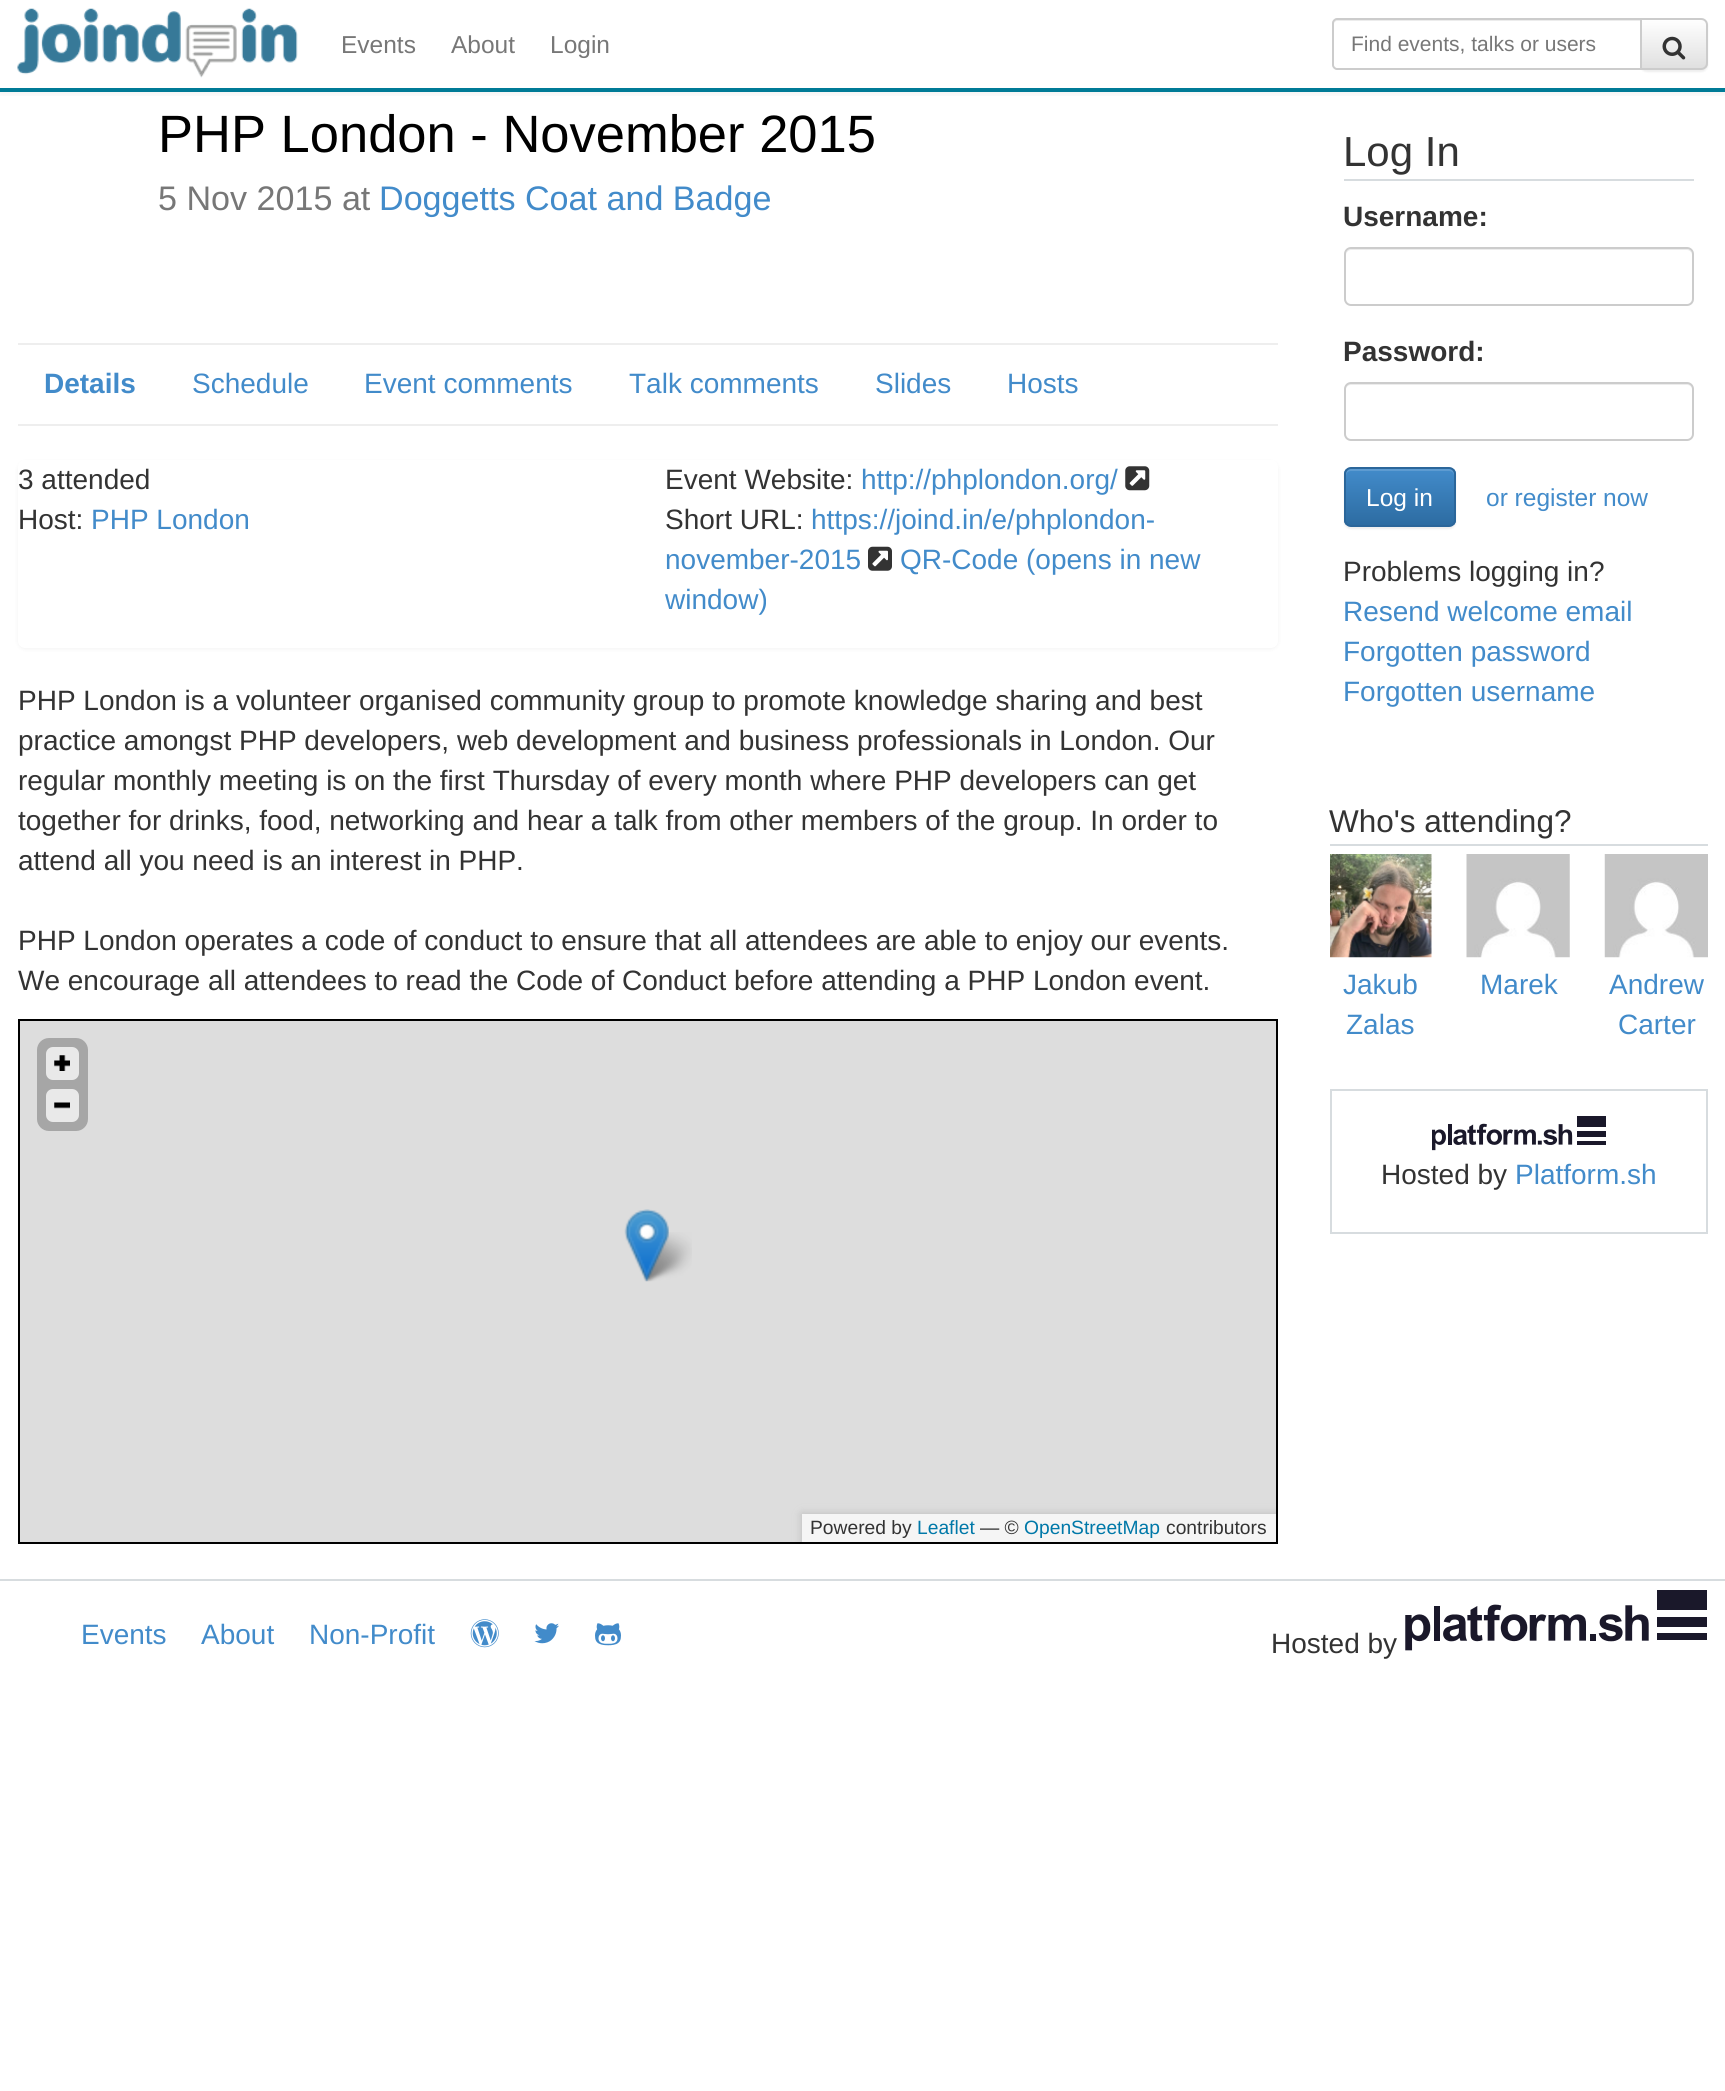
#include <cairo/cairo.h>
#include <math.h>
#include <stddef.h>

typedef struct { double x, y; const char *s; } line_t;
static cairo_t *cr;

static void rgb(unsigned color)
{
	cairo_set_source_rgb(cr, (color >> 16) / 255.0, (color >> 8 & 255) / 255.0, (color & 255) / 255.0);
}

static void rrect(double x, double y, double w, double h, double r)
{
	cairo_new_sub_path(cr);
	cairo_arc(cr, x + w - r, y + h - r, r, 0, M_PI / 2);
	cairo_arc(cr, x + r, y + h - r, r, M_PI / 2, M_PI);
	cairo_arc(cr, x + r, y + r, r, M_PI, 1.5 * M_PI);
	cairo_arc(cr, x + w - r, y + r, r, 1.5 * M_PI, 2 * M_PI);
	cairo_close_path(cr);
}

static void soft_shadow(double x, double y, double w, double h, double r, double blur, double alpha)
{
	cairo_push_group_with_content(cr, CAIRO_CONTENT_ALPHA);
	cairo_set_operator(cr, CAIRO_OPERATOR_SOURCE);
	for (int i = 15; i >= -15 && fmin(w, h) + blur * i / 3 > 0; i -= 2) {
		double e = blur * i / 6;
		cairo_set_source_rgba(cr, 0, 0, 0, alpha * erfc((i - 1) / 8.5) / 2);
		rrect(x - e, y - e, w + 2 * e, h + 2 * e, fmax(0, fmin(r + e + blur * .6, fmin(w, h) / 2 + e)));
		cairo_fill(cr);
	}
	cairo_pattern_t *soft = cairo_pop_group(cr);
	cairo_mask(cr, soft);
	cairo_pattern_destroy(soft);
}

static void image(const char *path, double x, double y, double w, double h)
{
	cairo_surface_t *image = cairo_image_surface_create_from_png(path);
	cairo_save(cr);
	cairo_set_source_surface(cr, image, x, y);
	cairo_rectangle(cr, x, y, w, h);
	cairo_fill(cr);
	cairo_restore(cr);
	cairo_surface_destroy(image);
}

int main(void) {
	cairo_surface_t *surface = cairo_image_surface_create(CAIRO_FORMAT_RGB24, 1725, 2091);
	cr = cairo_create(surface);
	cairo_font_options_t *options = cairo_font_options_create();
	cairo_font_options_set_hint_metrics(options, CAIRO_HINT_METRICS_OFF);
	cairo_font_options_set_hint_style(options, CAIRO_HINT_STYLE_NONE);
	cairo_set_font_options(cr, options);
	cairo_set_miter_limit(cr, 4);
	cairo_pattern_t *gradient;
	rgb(0xffffff);
	cairo_paint(cr);
	cairo_save(cr);
	cairo_rectangle(cr, 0, 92, 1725, 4);
	cairo_clip(cr);
	rgb(0x000000);
	soft_shadow(0, 2, 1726, 91, 0, 4.5, 0.07);
	cairo_restore(cr);
	rgb(0x007b97);
	cairo_rectangle(cr, 0, 88, 1725, 4);
	cairo_fill(cr);
	image("img/1.png", 17, 8, 281, 70);
	rgb(0x000000);
	soft_shadow(1640, 19, 68, 53, 7, 1, 0.07);
	cairo_save(cr);
	cairo_new_path(cr);
	cairo_move_to(cr, 1640, 18);
	cairo_line_to(cr, 1701, 18);
	cairo_curve_to(cr, 1705, 18, 1708, 21, 1708, 25);
	cairo_line_to(cr, 1708, 63);
	cairo_curve_to(cr, 1708, 67, 1705, 70, 1701, 70);
	cairo_line_to(cr, 1640, 70);
	cairo_close_path(cr);
	cairo_clip(cr);
	gradient = cairo_pattern_create_linear(1674, 19, 1674, 68);
	cairo_pattern_add_color_stop_rgba(gradient, 0, 1, 1, 1, 1);
	cairo_pattern_add_color_stop_rgba(gradient, 1, 0.878, 0.878, 0.878, 1);
	cairo_set_source(cr, gradient);
	cairo_pattern_destroy(gradient);
	cairo_rectangle(cr, 1642, 19, 66, 49);
	cairo_fill(cr);
	cairo_restore(cr);
	cairo_new_path(cr);
	cairo_move_to(cr, 1641, 19);
	cairo_line_to(cr, 1701, 19);
	cairo_curve_to(cr, 1704.5, 19, 1707, 21.5, 1707, 25);
	cairo_line_to(cr, 1707, 63);
	cairo_curve_to(cr, 1707, 66.5, 1704.5, 69, 1701, 69);
	cairo_line_to(cr, 1641, 69);
	cairo_close_path(cr);
	rgb(0xcccccc);
	cairo_stroke(cr);
	rgb(0xffffff);
	cairo_new_path(cr);
	cairo_move_to(cr, 1337, 18);
	cairo_line_to(cr, 1642, 18);
	cairo_line_to(cr, 1642, 70);
	cairo_line_to(cr, 1337, 70);
	cairo_curve_to(cr, 1334, 70, 1332, 68, 1332, 65);
	cairo_line_to(cr, 1332, 23);
	cairo_curve_to(cr, 1332, 20, 1334, 18, 1337, 18);
	cairo_close_path(cr);
	cairo_fill(cr);
	rgb(0xececec);
	cairo_new_path(cr);
	cairo_move_to(cr, 1337, 21);
	cairo_line_to(cr, 1640, 21);
	cairo_line_to(cr, 1640, 19);
	cairo_line_to(cr, 1338, 19);
	cairo_curve_to(cr, 1336, 19, 1334, 21, 1334, 23);
	cairo_line_to(cr, 1334, 24);
	cairo_curve_to(cr, 1334, 23, 1335, 21, 1337, 21);
	cairo_close_path(cr);
	cairo_fill(cr);
	cairo_new_path(cr);
	cairo_move_to(cr, 1337, 19);
	cairo_line_to(cr, 1641, 19);
	cairo_line_to(cr, 1641, 69);
	cairo_line_to(cr, 1337, 69);
	cairo_curve_to(cr, 1335, 69, 1333, 67, 1333, 65);
	cairo_line_to(cr, 1333, 23);
	cairo_curve_to(cr, 1333, 21, 1335, 19, 1337, 19);
	cairo_close_path(cr);
	rgb(0xcccccc);
	cairo_stroke(cr);
	image("img/2.png", 1662, 36, 24, 24);
	rgb(0xeeeeee);
	cairo_rectangle(cr, 18, 424, 1260, 2);
	cairo_fill(cr);
	cairo_rectangle(cr, 18, 343, 1260, 2);
	cairo_fill(cr);
	rgb(0x000000);
	soft_shadow(18, 462, 1260, 187, 7, 2, 0.05);
	rgb(0xffffff);
	rrect(18, 460, 1260, 188, 7);
	cairo_fill(cr);
	image("img/3.png", 1125, 466, 25, 25);
	image("img/4.png", 868, 546, 24, 25);
	rgb(0xdddddd);
	cairo_rectangle(cr, 19, 1020, 1258, 523);
	cairo_fill_preserve(cr);
	rgb(0x000000);
	cairo_stroke(cr);
	image("img/6.png", 640, 1232, 52, 50);
	image("img/5.png", 624, 1209, 45, 73);
	rgb(0xa6a6a6);
	rrect(37, 1038, 51, 93, 12);
	cairo_fill(cr);
	rgb(0xe9e9e9);
	rrect(46, 1047, 33, 33, 7);
	cairo_fill(cr);
	image("img/7.png", 54, 1055, 16, 16);
	rrect(46, 1089, 33, 33, 7);
	cairo_fill(cr);
	image("img/8.png", 54, 1102, 16, 7);
	cairo_save(cr);
	cairo_rectangle(cr, 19, 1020, 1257, 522);
	cairo_clip(cr);
	cairo_set_fill_rule(cr, CAIRO_FILL_RULE_EVEN_ODD);
	cairo_new_path(cr);
	cairo_move_to(cr, 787, 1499);
	cairo_line_to(cr, 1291, 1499);
	cairo_line_to(cr, 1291, 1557);
	cairo_line_to(cr, 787, 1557);
	cairo_close_path(cr);
	cairo_move_to(cr, 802, 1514);
	cairo_line_to(cr, 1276, 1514);
	cairo_line_to(cr, 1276, 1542);
	cairo_line_to(cr, 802, 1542);
	cairo_close_path(cr);
	cairo_clip(cr);
	rgb(0xbbbbbb);
	soft_shadow(802, 1514, 474, 28, 0, 4.5, 1);
	cairo_restore(cr);
	cairo_set_source_rgba(cr, 1, 1, 1, 0.7);
	cairo_rectangle(cr, 802, 1514, 474, 28);
	cairo_fill(cr);
	rgb(0xd7dcdf);
	cairo_rectangle(cr, 1344, 179, 350, 2);
	cairo_fill(cr);
	rgb(0xececec);
	cairo_new_path(cr);
	cairo_move_to(cr, 1351, 250);
	cairo_line_to(cr, 1687, 250);
	cairo_curve_to(cr, 1690, 250, 1692, 253, 1692, 256);
	cairo_curve_to(cr, 1692, 253, 1691, 249, 1687, 249);
	cairo_line_to(cr, 1351, 249);
	cairo_curve_to(cr, 1347, 249, 1346, 253, 1346, 256);
	cairo_curve_to(cr, 1346, 253, 1348, 250, 1351, 250);
	cairo_close_path(cr);
	cairo_fill(cr);
	rrect(1345, 248, 348, 57, 6);
	rgb(0xcccccc);
	cairo_stroke(cr);
	rgb(0xececec);
	cairo_new_path(cr);
	cairo_move_to(cr, 1351, 385);
	cairo_line_to(cr, 1687, 385);
	cairo_curve_to(cr, 1690, 385, 1692, 387, 1692, 390);
	cairo_curve_to(cr, 1692, 387, 1691, 383, 1687, 383);
	cairo_line_to(cr, 1351, 383);
	cairo_curve_to(cr, 1347, 383, 1346, 387, 1346, 390);
	cairo_curve_to(cr, 1346, 387, 1348, 385, 1351, 385);
	cairo_close_path(cr);
	cairo_fill(cr);
	rrect(1345, 383, 348, 57, 6);
	rgb(0xcccccc);
	cairo_stroke(cr);
	rgb(0x000000);
	soft_shadow(1344, 469, 112, 60, 7, 1, 0.07);
	cairo_save(cr);
	rrect(1344, 467, 112, 60, 7);
	cairo_clip(cr);
	gradient = cairo_pattern_create_linear(1400, 469, 1400, 525);
	cairo_pattern_add_color_stop_rgba(gradient, 0, 0.259, 0.545, 0.792, 1);
	cairo_pattern_add_color_stop_rgba(gradient, 1, 0.176, 0.424, 0.635, 1);
	cairo_set_source(cr, gradient);
	cairo_pattern_destroy(gradient);
	cairo_rectangle(cr, 1344, 469, 112, 56);
	cairo_fill(cr);
	cairo_restore(cr);
	cairo_set_source_rgba(cr, 1, 1, 1, 0.15);
	cairo_new_path(cr);
	cairo_move_to(cr, 1351, 471);
	cairo_line_to(cr, 1449, 471);
	cairo_curve_to(cr, 1452, 471, 1454, 473, 1454, 476);
	cairo_line_to(cr, 1454, 474);
	cairo_curve_to(cr, 1454, 471, 1452, 469, 1449, 469);
	cairo_line_to(cr, 1351, 469);
	cairo_curve_to(cr, 1348, 469, 1346, 471, 1346, 474);
	cairo_line_to(cr, 1346, 476);
	cairo_curve_to(cr, 1346, 473, 1348, 471, 1351, 471);
	cairo_close_path(cr);
	cairo_fill(cr);
	rrect(1345, 468, 110, 58, 6);
	rgb(0x2b669a);
	cairo_stroke(cr);
	rgb(0xd7dcdf);
	cairo_rectangle(cr, 1330, 844, 378, 2);
	cairo_fill(cr);
	image("img/9.png", 1330, 854, 102, 104);
	image("img/10.png", 1466, 854, 104, 104);
	image("img/11.png", 1604, 854, 104, 104);
	cairo_rectangle(cr, 1331, 1090, 376, 143);
	cairo_stroke(cr);
	image("img/12.png", 1432, 1116, 174, 35);
	cairo_rectangle(cr, 0, 1579, 1725, 2);
	cairo_fill(cr);
	image("img/13.png", 470, 1619, 29, 29);
	image("img/14.png", 534, 1623, 25, 21);
	image("img/15.png", 595, 1623, 26, 23);
	image("img/16.png", 1405, 1590, 302, 61);
	cairo_select_font_face(cr, "Liberation Sans", CAIRO_FONT_SLANT_NORMAL, CAIRO_FONT_WEIGHT_NORMAL);
	cairo_set_font_size(cr, 24.5);
	rgb(0x777777);
	{
		static const line_t items[] = {
			{341, 53, "Events"},
			{451, 53, "About"},
			{550, 53, "Login"},
		};
		for (size_t i = 0; i < sizeof items / sizeof *items; i++) {
			cairo_move_to(cr, items[i].x, items[i].y);
			cairo_show_text(cr, items[i].s);
		}
	}
	cairo_set_font_size(cr, 21);
	cairo_move_to(cr, 1351, 51);
	cairo_show_text(cr, "Find events, talks or users");
	cairo_set_font_size(cr, 52.5);
	rgb(0x000000);
	cairo_move_to(cr, 158, 152);
	cairo_show_text(cr, "PHP London - November 2015");
	cairo_set_font_size(cr, 34.1);
	rgb(0x777777);
	cairo_move_to(cr, 158, 210);
	cairo_show_text(cr, "5 Nov 2015 at");
	rgb(0x428bca);
	cairo_move_to(cr, 379, 210);
	cairo_show_text(cr, "Doggetts Coat and Badge");
	cairo_select_font_face(cr, "Liberation Sans", CAIRO_FONT_SLANT_NORMAL, CAIRO_FONT_WEIGHT_BOLD);
	cairo_set_font_size(cr, 28);
	cairo_move_to(cr, 44, 393);
	cairo_show_text(cr, "Details");
	cairo_select_font_face(cr, "Liberation Sans", CAIRO_FONT_SLANT_NORMAL, CAIRO_FONT_WEIGHT_NORMAL);
	{
		static const line_t items[] = {
			{192, 393, "Schedule"},
			{364, 393, "Event comments"},
			{629, 393, "Talk comments"},
			{875, 393, "Slides"},
			{1007, 393, "Hosts"},
		};
		for (size_t i = 0; i < sizeof items / sizeof *items; i++) {
			cairo_move_to(cr, items[i].x, items[i].y);
			cairo_show_text(cr, items[i].s);
		}
	}
	rgb(0x333333);
	cairo_move_to(cr, 18, 489);
	cairo_show_text(cr, "3 attended");
	cairo_move_to(cr, 18, 529);
	cairo_show_text(cr, "Host:");
	rgb(0x428bca);
	cairo_move_to(cr, 91, 529);
	cairo_show_text(cr, "PHP London");
	rgb(0x333333);
	cairo_move_to(cr, 665, 489);
	cairo_show_text(cr, "Event Website:");
	rgb(0x428bca);
	cairo_move_to(cr, 861, 489);
	cairo_show_text(cr, "http://phplondon.org/");
	rgb(0x333333);
	cairo_move_to(cr, 665, 529);
	cairo_show_text(cr, "Short URL:");
	rgb(0x428bca);
	{
		static const line_t items[] = {
			{811, 529, "https://joind.in/e/phplondon-"},
			{665, 569, "november-2015"},
			{900, 569, "QR-Code (opens in new"},
			{665, 609, "window)"},
		};
		for (size_t i = 0; i < sizeof items / sizeof *items; i++) {
			cairo_move_to(cr, items[i].x, items[i].y);
			cairo_show_text(cr, items[i].s);
		}
	}
	rgb(0x333333);
	{
		static const line_t items[] = {
			{18, 710, "PHP London is a volunteer organised community group to promote knowledge sharing and best"},
			{18, 750, "practice amongst PHP developers, web development and business professionals in London. Our"},
			{18, 790, "regular monthly meeting is on the first Thursday of every month where PHP developers can get"},
			{18, 830, "together for drinks, food, networking and hear a talk from other members of the group. In order to"},
			{18, 870, "attend all you need is an interest in PHP."},
			{18, 950, "PHP London operates a code of conduct to ensure that all attendees are able to enjoy our events."},
			{18, 990, "We encourage all attendees to read the Code of Conduct before attending a PHP London event."},
		};
		for (size_t i = 0; i < sizeof items / sizeof *items; i++) {
			cairo_move_to(cr, items[i].x, items[i].y);
			cairo_show_text(cr, items[i].s);
		}
	}
	cairo_set_font_size(cr, 19.25);
	cairo_move_to(cr, 810, 1534);
	cairo_show_text(cr, "Powered by");
	rgb(0x0078a8);
	cairo_move_to(cr, 917, 1534);
	cairo_show_text(cr, "Leaflet");
	rgb(0x333333);
	cairo_move_to(cr, 980, 1534);
	cairo_show_text(cr, "— ©");
	rgb(0x0078a8);
	cairo_move_to(cr, 1024, 1534);
	cairo_show_text(cr, "OpenStreetMap");
	rgb(0x333333);
	cairo_move_to(cr, 1166, 1534);
	cairo_show_text(cr, "contributors");
	cairo_set_font_size(cr, 42);
	cairo_move_to(cr, 1343, 166);
	cairo_show_text(cr, "Log In");
	cairo_select_font_face(cr, "Liberation Sans", CAIRO_FONT_SLANT_NORMAL, CAIRO_FONT_WEIGHT_BOLD);
	cairo_set_font_size(cr, 28);
	cairo_move_to(cr, 1343, 226);
	cairo_show_text(cr, "Username:");
	cairo_move_to(cr, 1343, 361);
	cairo_show_text(cr, "Password:");
	cairo_select_font_face(cr, "Liberation Sans", CAIRO_FONT_SLANT_NORMAL, CAIRO_FONT_WEIGHT_NORMAL);
	cairo_set_font_size(cr, 24.5);
	rgb(0xffffff);
	cairo_move_to(cr, 1366, 506);
	cairo_show_text(cr, "Log in");
	rgb(0x428bca);
	cairo_move_to(cr, 1486, 506);
	cairo_show_text(cr, "or register now");
	cairo_set_font_size(cr, 28);
	rgb(0x333333);
	cairo_move_to(cr, 1343, 581);
	cairo_show_text(cr, "Problems logging in?");
	rgb(0x428bca);
	{
		static const line_t items[] = {
			{1343, 621, "Resend welcome email"},
			{1343, 661, "Forgotten password"},
			{1343, 701, "Forgotten username"},
		};
		for (size_t i = 0; i < sizeof items / sizeof *items; i++) {
			cairo_move_to(cr, items[i].x, items[i].y);
			cairo_show_text(cr, items[i].s);
		}
	}
	cairo_set_font_size(cr, 31.5);
	rgb(0x333333);
	cairo_move_to(cr, 1329, 832);
	cairo_show_text(cr, "Who's attending?");
	cairo_set_font_size(cr, 28);
	rgb(0x428bca);
	{
		static const line_t items[] = {
			{1343, 994, "Jakub"},
			{1346, 1034, "Zalas"},
			{1480, 994, "Marek"},
			{1609, 994, "Andrew"},
			{1618, 1034, "Carter"},
		};
		for (size_t i = 0; i < sizeof items / sizeof *items; i++) {
			cairo_move_to(cr, items[i].x, items[i].y);
			cairo_show_text(cr, items[i].s);
		}
	}
	rgb(0x333333);
	cairo_move_to(cr, 1381, 1184);
	cairo_show_text(cr, "Hosted by");
	rgb(0x428bca);
	{
		static const line_t items[] = {
			{1515, 1184, "Platform.sh"},
			{81, 1644, "Events"},
			{201, 1644, "About"},
			{309, 1644, "Non-Profit"},
		};
		for (size_t i = 0; i < sizeof items / sizeof *items; i++) {
			cairo_move_to(cr, items[i].x, items[i].y);
			cairo_show_text(cr, items[i].s);
		}
	}
	rgb(0x333333);
	cairo_move_to(cr, 1271, 1653);
	cairo_show_text(cr, "Hosted by");
	cairo_surface_write_to_png(surface, "page.png");
	cairo_font_options_destroy(options);
	cairo_destroy(cr);
	cairo_surface_destroy(surface);
	return 0;
}
